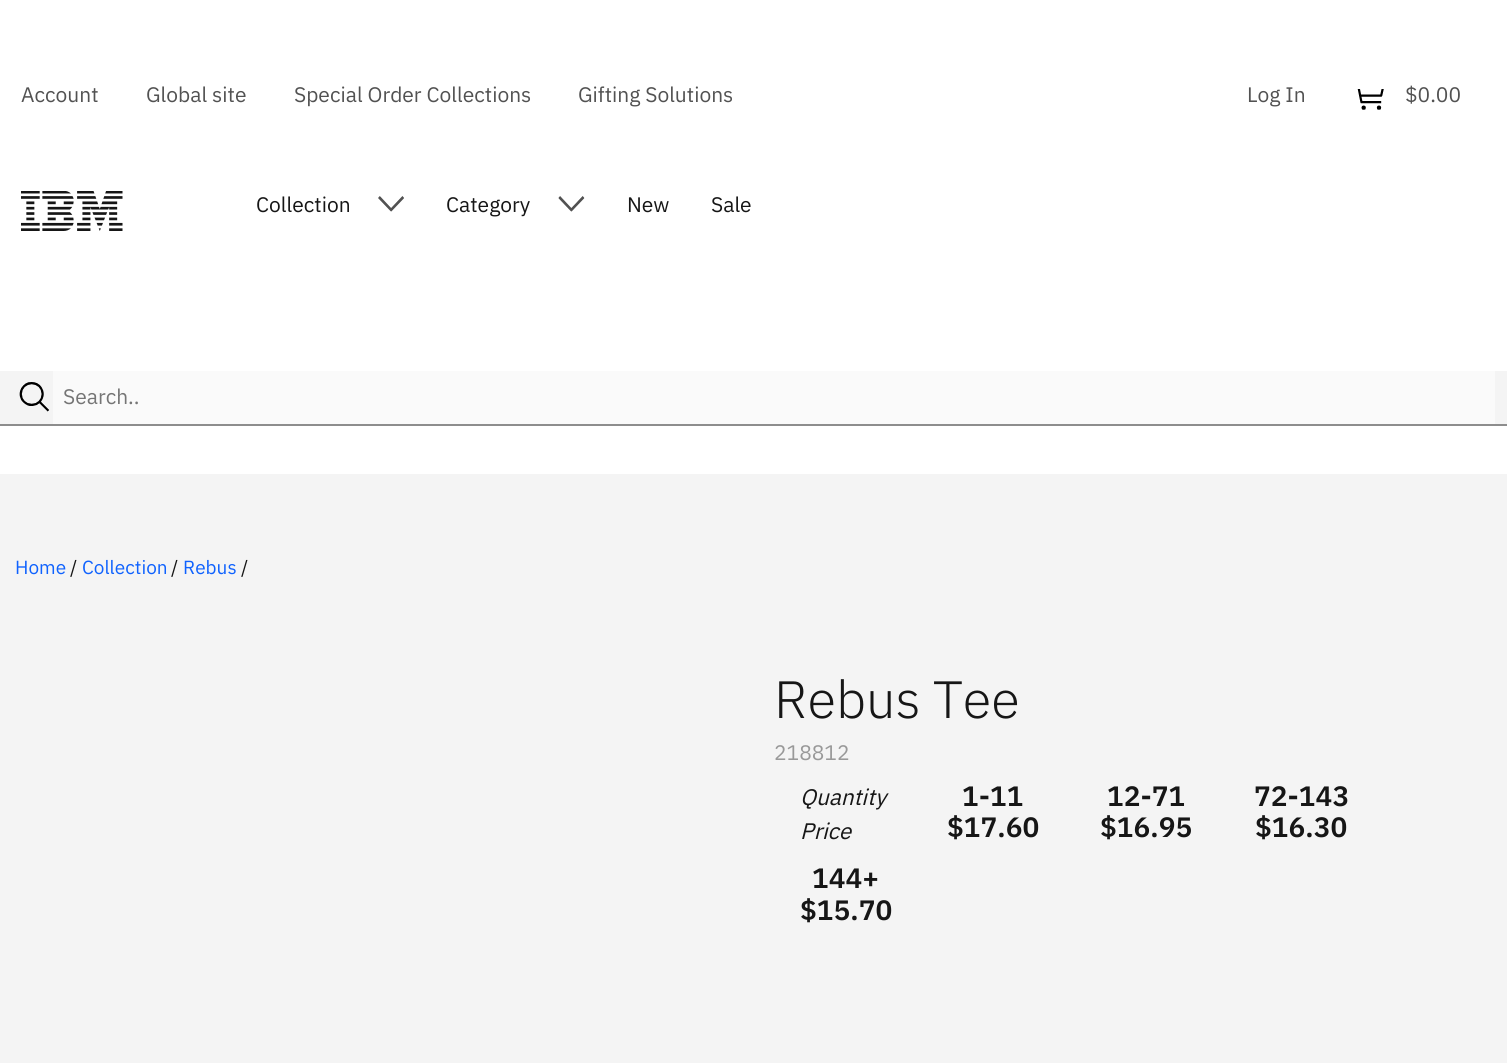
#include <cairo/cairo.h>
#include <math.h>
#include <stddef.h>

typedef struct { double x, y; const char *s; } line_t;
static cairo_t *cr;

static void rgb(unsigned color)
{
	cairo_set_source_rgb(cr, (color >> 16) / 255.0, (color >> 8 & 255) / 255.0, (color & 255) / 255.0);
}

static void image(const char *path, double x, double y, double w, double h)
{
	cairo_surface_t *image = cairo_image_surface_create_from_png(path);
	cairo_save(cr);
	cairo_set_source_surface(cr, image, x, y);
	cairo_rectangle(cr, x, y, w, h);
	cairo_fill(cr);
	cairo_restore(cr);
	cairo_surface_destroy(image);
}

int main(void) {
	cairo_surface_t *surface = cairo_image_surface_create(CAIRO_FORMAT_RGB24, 1507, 1063);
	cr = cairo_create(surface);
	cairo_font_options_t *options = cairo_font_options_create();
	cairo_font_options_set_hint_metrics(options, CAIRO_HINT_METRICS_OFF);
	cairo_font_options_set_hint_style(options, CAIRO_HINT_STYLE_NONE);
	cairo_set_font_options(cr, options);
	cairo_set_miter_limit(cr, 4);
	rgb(0xf4f4f4);
	cairo_paint(cr);
	rgb(0xffffff);
	cairo_rectangle(cr, 0, 0, 1507, 474);
	cairo_fill(cr);
	image("img/1.png", 1357, 89, 27, 21);
	image("img/2.png", 21, 191, 102, 40);
	image("img/3.png", 378, 196, 26, 16);
	image("img/4.png", 558, 196, 27, 16);
	rgb(0xf4f4f4);
	cairo_rectangle(cr, 0, 371, 1507, 53);
	cairo_fill(cr);
	rgb(0x8d8d8d);
	cairo_rectangle(cr, 0, 424, 1507, 2);
	cairo_fill(cr);
	image("img/5.png", 19, 382, 30, 30);
	rgb(0xfafafa);
	cairo_rectangle(cr, 53, 371, 1442, 53);
	cairo_fill(cr);
	cairo_select_font_face(cr, "IBM Plex Sans", CAIRO_FONT_SLANT_NORMAL, CAIRO_FONT_WEIGHT_NORMAL);
	cairo_set_font_size(cr, 21);
	rgb(0x525252);
	{
		static const line_t items[] = {
			{21, 102, "Account"},
			{146, 102, "Global site"},
			{294, 102, "Special Order Collections"},
			{578, 102, "Gifting Solutions"},
			{1247, 102, "Log In"},
			{1405, 102, "$0.00"},
		};
		for (size_t i = 0; i < sizeof items / sizeof *items; i++) {
			cairo_move_to(cr, items[i].x, items[i].y);
			cairo_show_text(cr, items[i].s);
		}
	}
	rgb(0x161616);
	{
		static const line_t items[] = {
			{256, 212, "Collection"},
			{446, 212, "Category"},
			{627, 212, "New"},
			{711, 212, "Sale"},
		};
		for (size_t i = 0; i < sizeof items / sizeof *items; i++) {
			cairo_move_to(cr, items[i].x, items[i].y);
			cairo_show_text(cr, items[i].s);
		}
	}
	rgb(0x757575);
	cairo_move_to(cr, 63, 404);
	cairo_show_text(cr, "Search..");
	cairo_set_font_size(cr, 19);
	rgb(0x0f62fe);
	cairo_move_to(cr, 15, 574);
	cairo_show_text(cr, "Home");
	rgb(0x161616);
	cairo_move_to(cr, 70, 574);
	cairo_show_text(cr, "/");
	rgb(0x0f62fe);
	cairo_move_to(cr, 82, 574);
	cairo_show_text(cr, "Collection");
	rgb(0x161616);
	cairo_move_to(cr, 171, 574);
	cairo_show_text(cr, "/");
	rgb(0x0f62fe);
	cairo_move_to(cr, 183, 574);
	cairo_show_text(cr, "Rebus");
	rgb(0x161616);
	cairo_move_to(cr, 241, 574);
	cairo_show_text(cr, "/");
	cairo_select_font_face(cr, "IBM Plex Sans Light", CAIRO_FONT_SLANT_NORMAL, CAIRO_FONT_WEIGHT_NORMAL);
	cairo_set_font_size(cr, 52.5);
	cairo_move_to(cr, 774, 718);
	cairo_show_text(cr, "Rebus Tee");
	cairo_select_font_face(cr, "IBM Plex Sans", CAIRO_FONT_SLANT_NORMAL, CAIRO_FONT_WEIGHT_NORMAL);
	cairo_set_font_size(cr, 21);
	rgb(0x999999);
	cairo_move_to(cr, 774, 760);
	cairo_show_text(cr, "218812");
	cairo_select_font_face(cr, "IBM Plex Sans", CAIRO_FONT_SLANT_ITALIC, CAIRO_FONT_WEIGHT_NORMAL);
	cairo_set_font_size(cr, 22.5);
	rgb(0x161616);
	cairo_move_to(cr, 800, 805);
	cairo_show_text(cr, "Quantity");
	cairo_move_to(cr, 800, 839);
	cairo_show_text(cr, "Price");
	cairo_select_font_face(cr, "IBM Plex Sans SemiBold", CAIRO_FONT_SLANT_NORMAL, CAIRO_FONT_WEIGHT_NORMAL);
	cairo_set_font_size(cr, 28);
	{
		static const line_t items[] = {
			{962, 806, "1-11"},
			{947, 837, "$17.60"},
			{1107, 806, "12-71"},
			{1100, 837, "$16.95"},
			{1254, 806, "72-143"},
			{1255, 837, "$16.30"},
			{812, 888, "144+"},
			{800, 920, "$15.70"},
		};
		for (size_t i = 0; i < sizeof items / sizeof *items; i++) {
			cairo_move_to(cr, items[i].x, items[i].y);
			cairo_show_text(cr, items[i].s);
		}
	}
	cairo_surface_write_to_png(surface, "page.png");
	cairo_font_options_destroy(options);
	cairo_destroy(cr);
	cairo_surface_destroy(surface);
	return 0;
}
